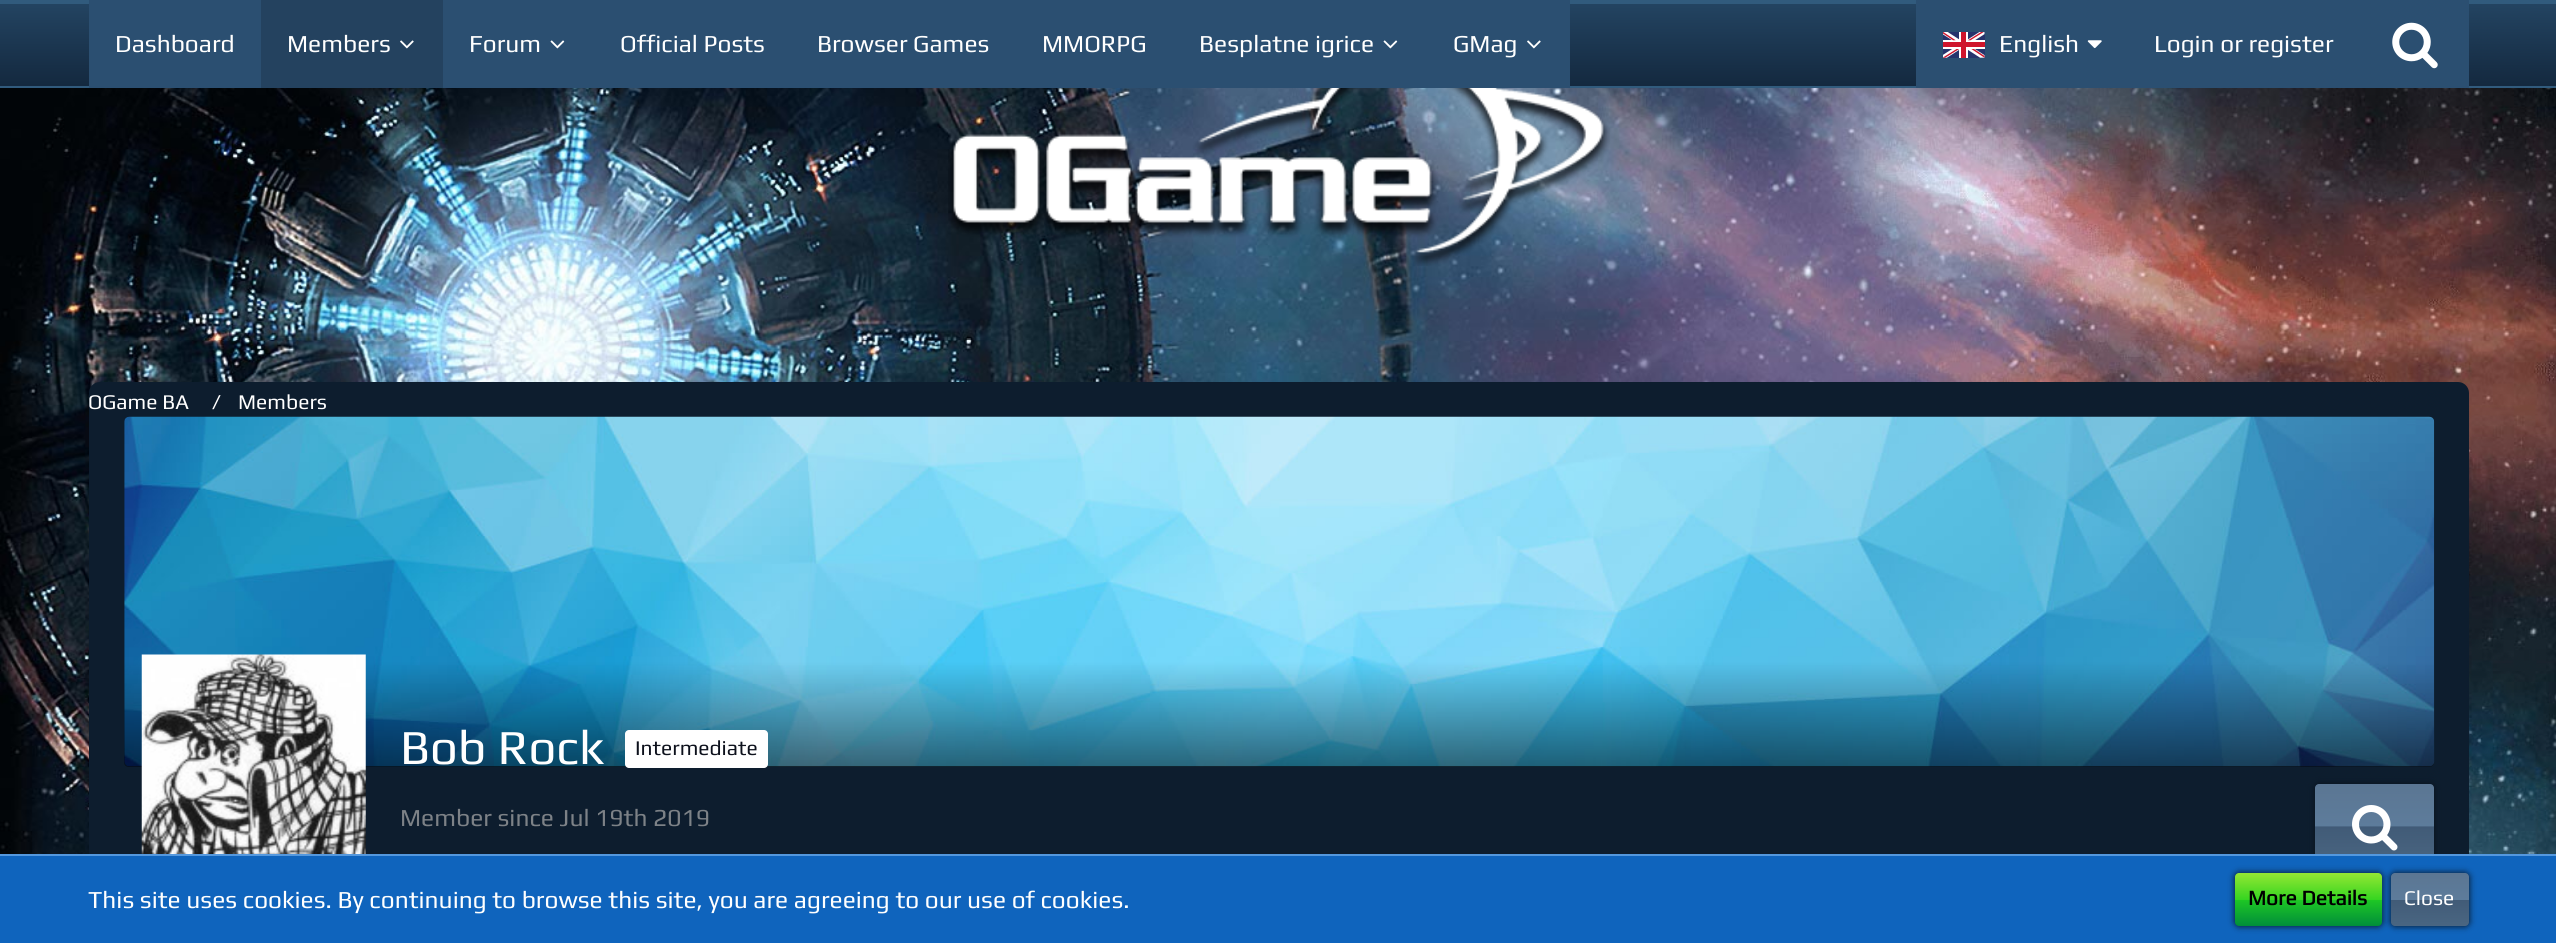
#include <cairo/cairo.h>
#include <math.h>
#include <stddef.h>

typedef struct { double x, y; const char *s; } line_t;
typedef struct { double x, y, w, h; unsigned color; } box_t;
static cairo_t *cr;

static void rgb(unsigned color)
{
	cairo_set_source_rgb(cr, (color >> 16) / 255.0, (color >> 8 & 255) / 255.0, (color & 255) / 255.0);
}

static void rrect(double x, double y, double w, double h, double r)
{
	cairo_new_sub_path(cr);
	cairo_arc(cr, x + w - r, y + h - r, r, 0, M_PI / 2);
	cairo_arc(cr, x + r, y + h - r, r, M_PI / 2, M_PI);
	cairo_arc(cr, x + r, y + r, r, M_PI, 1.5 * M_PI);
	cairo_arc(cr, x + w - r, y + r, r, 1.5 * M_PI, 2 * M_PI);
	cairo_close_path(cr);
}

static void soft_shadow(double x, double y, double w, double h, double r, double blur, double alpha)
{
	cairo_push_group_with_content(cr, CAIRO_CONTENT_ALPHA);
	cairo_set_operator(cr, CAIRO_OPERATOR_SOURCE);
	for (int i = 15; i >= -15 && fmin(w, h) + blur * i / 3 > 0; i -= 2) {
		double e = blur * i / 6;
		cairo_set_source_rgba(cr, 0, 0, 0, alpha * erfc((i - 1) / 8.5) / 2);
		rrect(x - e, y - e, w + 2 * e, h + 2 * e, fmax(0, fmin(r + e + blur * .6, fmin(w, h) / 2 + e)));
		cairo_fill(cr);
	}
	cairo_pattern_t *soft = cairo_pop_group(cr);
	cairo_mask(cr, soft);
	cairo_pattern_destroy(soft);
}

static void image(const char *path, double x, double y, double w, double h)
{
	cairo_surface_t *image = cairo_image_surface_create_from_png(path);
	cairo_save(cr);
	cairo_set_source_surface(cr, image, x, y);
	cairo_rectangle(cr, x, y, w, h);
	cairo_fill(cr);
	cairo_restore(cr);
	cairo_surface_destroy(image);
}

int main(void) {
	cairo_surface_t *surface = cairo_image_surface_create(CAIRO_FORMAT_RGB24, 2556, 943);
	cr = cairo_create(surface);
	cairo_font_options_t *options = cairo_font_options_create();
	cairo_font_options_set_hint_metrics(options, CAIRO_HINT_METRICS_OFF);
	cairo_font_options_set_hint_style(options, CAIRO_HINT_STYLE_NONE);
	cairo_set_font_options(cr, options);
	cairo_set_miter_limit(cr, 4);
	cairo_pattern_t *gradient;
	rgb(0xffffff);
	cairo_paint(cr);
	image("img/1.png", 0, 88, 2556, 766);
	gradient = cairo_pattern_create_linear(1278, 88, 1278, 0);
	cairo_pattern_add_color_stop_rgba(gradient, 0, 0.075, 0.157, 0.243, 1);
	cairo_pattern_add_color_stop_rgba(gradient, 1, 0.141, 0.271, 0.388, 1);
	cairo_set_source(cr, gradient);
	cairo_pattern_destroy(gradient);
	cairo_rectangle(cr, 0, 4, 2556, 82);
	cairo_fill(cr);
	{
		static const box_t items[] = {
			{0, 86, 2556, 2, 0x315b7d},
			{0, 0, 2556, 4, 0x315b7d},
			{89, 0, 172, 88, 0x2b4f71},
			{261, 0, 182, 88, 0x24425f},
		};
		for (size_t i = 0; i < sizeof items / sizeof *items; i++) {
			rgb(items[i].color);
			cairo_rectangle(cr, items[i].x, items[i].y, items[i].w, items[i].h);
			cairo_fill(cr);
		}
	}
	image("img/2.png", 400, 40, 14, 9);
	rgb(0x2b4f71);
	cairo_rectangle(cr, 443, 0, 1127, 88);
	cairo_fill(cr);
	image("img/3.png", 550, 40, 15, 9);
	image("img/3.png", 1383, 40, 15, 9);
	image("img/4.png", 1527, 40, 14, 9);
	cairo_rectangle(cr, 1916, 0, 553, 88);
	cairo_fill(cr);
	image("img/5.png", 1943, 32, 42, 26);
	image("img/6.png", 2087, 40, 15, 9);
	image("img/7.png", 2392, 22, 46, 47);
	image("img/8.png", 948, 88, 662, 178);
	rgb(0x0d1d2e);
	rrect(89, 382, 2380, 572, 11);
	cairo_fill(cr);
	image("img/9.png", 124, 416, 2311, 351);
	gradient = cairo_pattern_create_linear(1279, 416, 1279, 767);
	cairo_pattern_add_color_stop_rgba(gradient, 0.7, 0, 0, 0, 0);
	cairo_pattern_add_color_stop_rgba(gradient, 1, 0, 0, 0, 0.5);
	cairo_set_source(cr, gradient);
	cairo_pattern_destroy(gradient);
	cairo_new_path(cr);
	cairo_move_to(cr, 124, 417);
	cairo_line_to(cr, 2434, 417);
	cairo_line_to(cr, 2434, 762);
	cairo_curve_to(cr, 2434, 765, 2432, 767, 2429, 767);
	cairo_line_to(cr, 129, 767);
	cairo_curve_to(cr, 126, 767, 124, 765, 124, 762);
	cairo_close_path(cr);
	cairo_fill(cr);
	image("img/10.png", 141, 654, 225, 200);
	rgb(0xffffff);
	rrect(625, 730, 143, 38, 4);
	cairo_fill(cr);
	rgb(0x08111c);
	soft_shadow(2315, 784, 119, 84, 4, 3.5, 1);
	gradient = cairo_pattern_create_linear(2375, 868, 2375, 784);
	cairo_pattern_add_color_stop_rgba(gradient, 0, 0.29, 0.4, 0.51, 1);
	cairo_pattern_add_color_stop_rgba(gradient, 0.49, 0.255, 0.357, 0.467, 1);
	cairo_pattern_add_color_stop_rgba(gradient, 0.5, 0.365, 0.486, 0.608, 1);
	cairo_pattern_add_color_stop_rgba(gradient, 1, 0.357, 0.463, 0.576, 1);
	cairo_set_source(cr, gradient);
	cairo_pattern_destroy(gradient);
	rrect(2315, 784, 119, 84, 4);
	cairo_fill(cr);
	image("img/11.png", 2352, 805, 46, 46);
	rgb(0x0f64bd);
	cairo_rectangle(cr, 0, 856, 2556, 87);
	cairo_fill(cr);
	rgb(0x5498de);
	cairo_rectangle(cr, 0, 854, 2556, 2);
	cairo_fill(cr);
	rgb(0x08111c);
	soft_shadow(2235, 873, 147, 53, 4, 3.5, 1);
	gradient = cairo_pattern_create_linear(2308, 873, 2308, 926);
	cairo_pattern_add_color_stop_rgba(gradient, 0, 0.58, 0.906, 0.2, 1);
	cairo_pattern_add_color_stop_rgba(gradient, 0.5, 0.212, 0.835, 0.129, 1);
	cairo_pattern_add_color_stop_rgba(gradient, 0.51, 0.118, 0.78, 0.145, 1);
	cairo_pattern_add_color_stop_rgba(gradient, 1, 0, 0.557, 0.227, 1);
	cairo_set_source(cr, gradient);
	cairo_pattern_destroy(gradient);
	rrect(2235, 873, 147, 53, 4);
	cairo_fill(cr);
	rgb(0x08111c);
	soft_shadow(2391, 873, 78, 53, 4, 3.5, 1);
	gradient = cairo_pattern_create_linear(2430, 926, 2430, 873);
	cairo_pattern_add_color_stop_rgba(gradient, 0, 0.29, 0.4, 0.51, 1);
	cairo_pattern_add_color_stop_rgba(gradient, 0.49, 0.255, 0.357, 0.467, 1);
	cairo_pattern_add_color_stop_rgba(gradient, 0.5, 0.365, 0.486, 0.608, 1);
	cairo_pattern_add_color_stop_rgba(gradient, 1, 0.357, 0.463, 0.576, 1);
	cairo_set_source(cr, gradient);
	cairo_pattern_destroy(gradient);
	rrect(2391, 873, 78, 53, 4);
	cairo_fill(cr);
	cairo_select_font_face(cr, "Play", CAIRO_FONT_SLANT_NORMAL, CAIRO_FONT_WEIGHT_NORMAL);
	cairo_set_font_size(cr, 24.5);
	rgb(0xffffff);
	{
		static const line_t items[] = {
			{115, 52, "Dashboard"},
			{287, 52, "Members"},
			{469, 52, "Forum"},
			{620, 52, "Official Posts"},
			{817, 52, "Browser Games"},
			{1042, 52, "MMORPG"},
			{1199, 52, "Besplatne igrice"},
			{1453, 52, "GMag"},
			{1999, 52, "English"},
			{2154, 52, "Login or register"},
		};
		for (size_t i = 0; i < sizeof items / sizeof *items; i++) {
			cairo_move_to(cr, items[i].x, items[i].y);
			cairo_show_text(cr, items[i].s);
		}
	}
	cairo_set_font_size(cr, 21);
	{
		static const line_t items[] = {
			{88, 409, "OGame BA"},
			{212, 409, "/"},
			{238, 409, "Members"},
		};
		for (size_t i = 0; i < sizeof items / sizeof *items; i++) {
			cairo_move_to(cr, items[i].x, items[i].y);
			cairo_show_text(cr, items[i].s);
		}
	}
	cairo_set_font_size(cr, 49);
	cairo_move_to(cr, 400, 764);
	cairo_show_text(cr, "Bob Rock");
	cairo_set_font_size(cr, 21);
	rgb(0x0d111c);
	cairo_move_to(cr, 635, 755);
	cairo_show_text(cr, "Intermediate");
	cairo_set_font_size(cr, 24.5);
	rgb(0x7d8287);
	cairo_move_to(cr, 400, 826);
	cairo_show_text(cr, "Member since Jul 19th 2019");
	rgb(0xffffff);
	cairo_move_to(cr, 88, 908);
	cairo_show_text(cr, "This site uses cookies. By continuing to browse this site, you are agreeing to our use of cookies.");
	cairo_select_font_face(cr, "Play", CAIRO_FONT_SLANT_NORMAL, CAIRO_FONT_WEIGHT_BOLD);
	cairo_set_font_size(cr, 21);
	rgb(0x000000);
	cairo_move_to(cr, 2248, 905);
	cairo_show_text(cr, "More Details");
	cairo_select_font_face(cr, "Play", CAIRO_FONT_SLANT_NORMAL, CAIRO_FONT_WEIGHT_NORMAL);
	rgb(0xffffff);
	cairo_move_to(cr, 2404, 905);
	cairo_show_text(cr, "Close");
	cairo_surface_write_to_png(surface, "page.png");
	cairo_font_options_destroy(options);
	cairo_destroy(cr);
	cairo_surface_destroy(surface);
	return 0;
}
